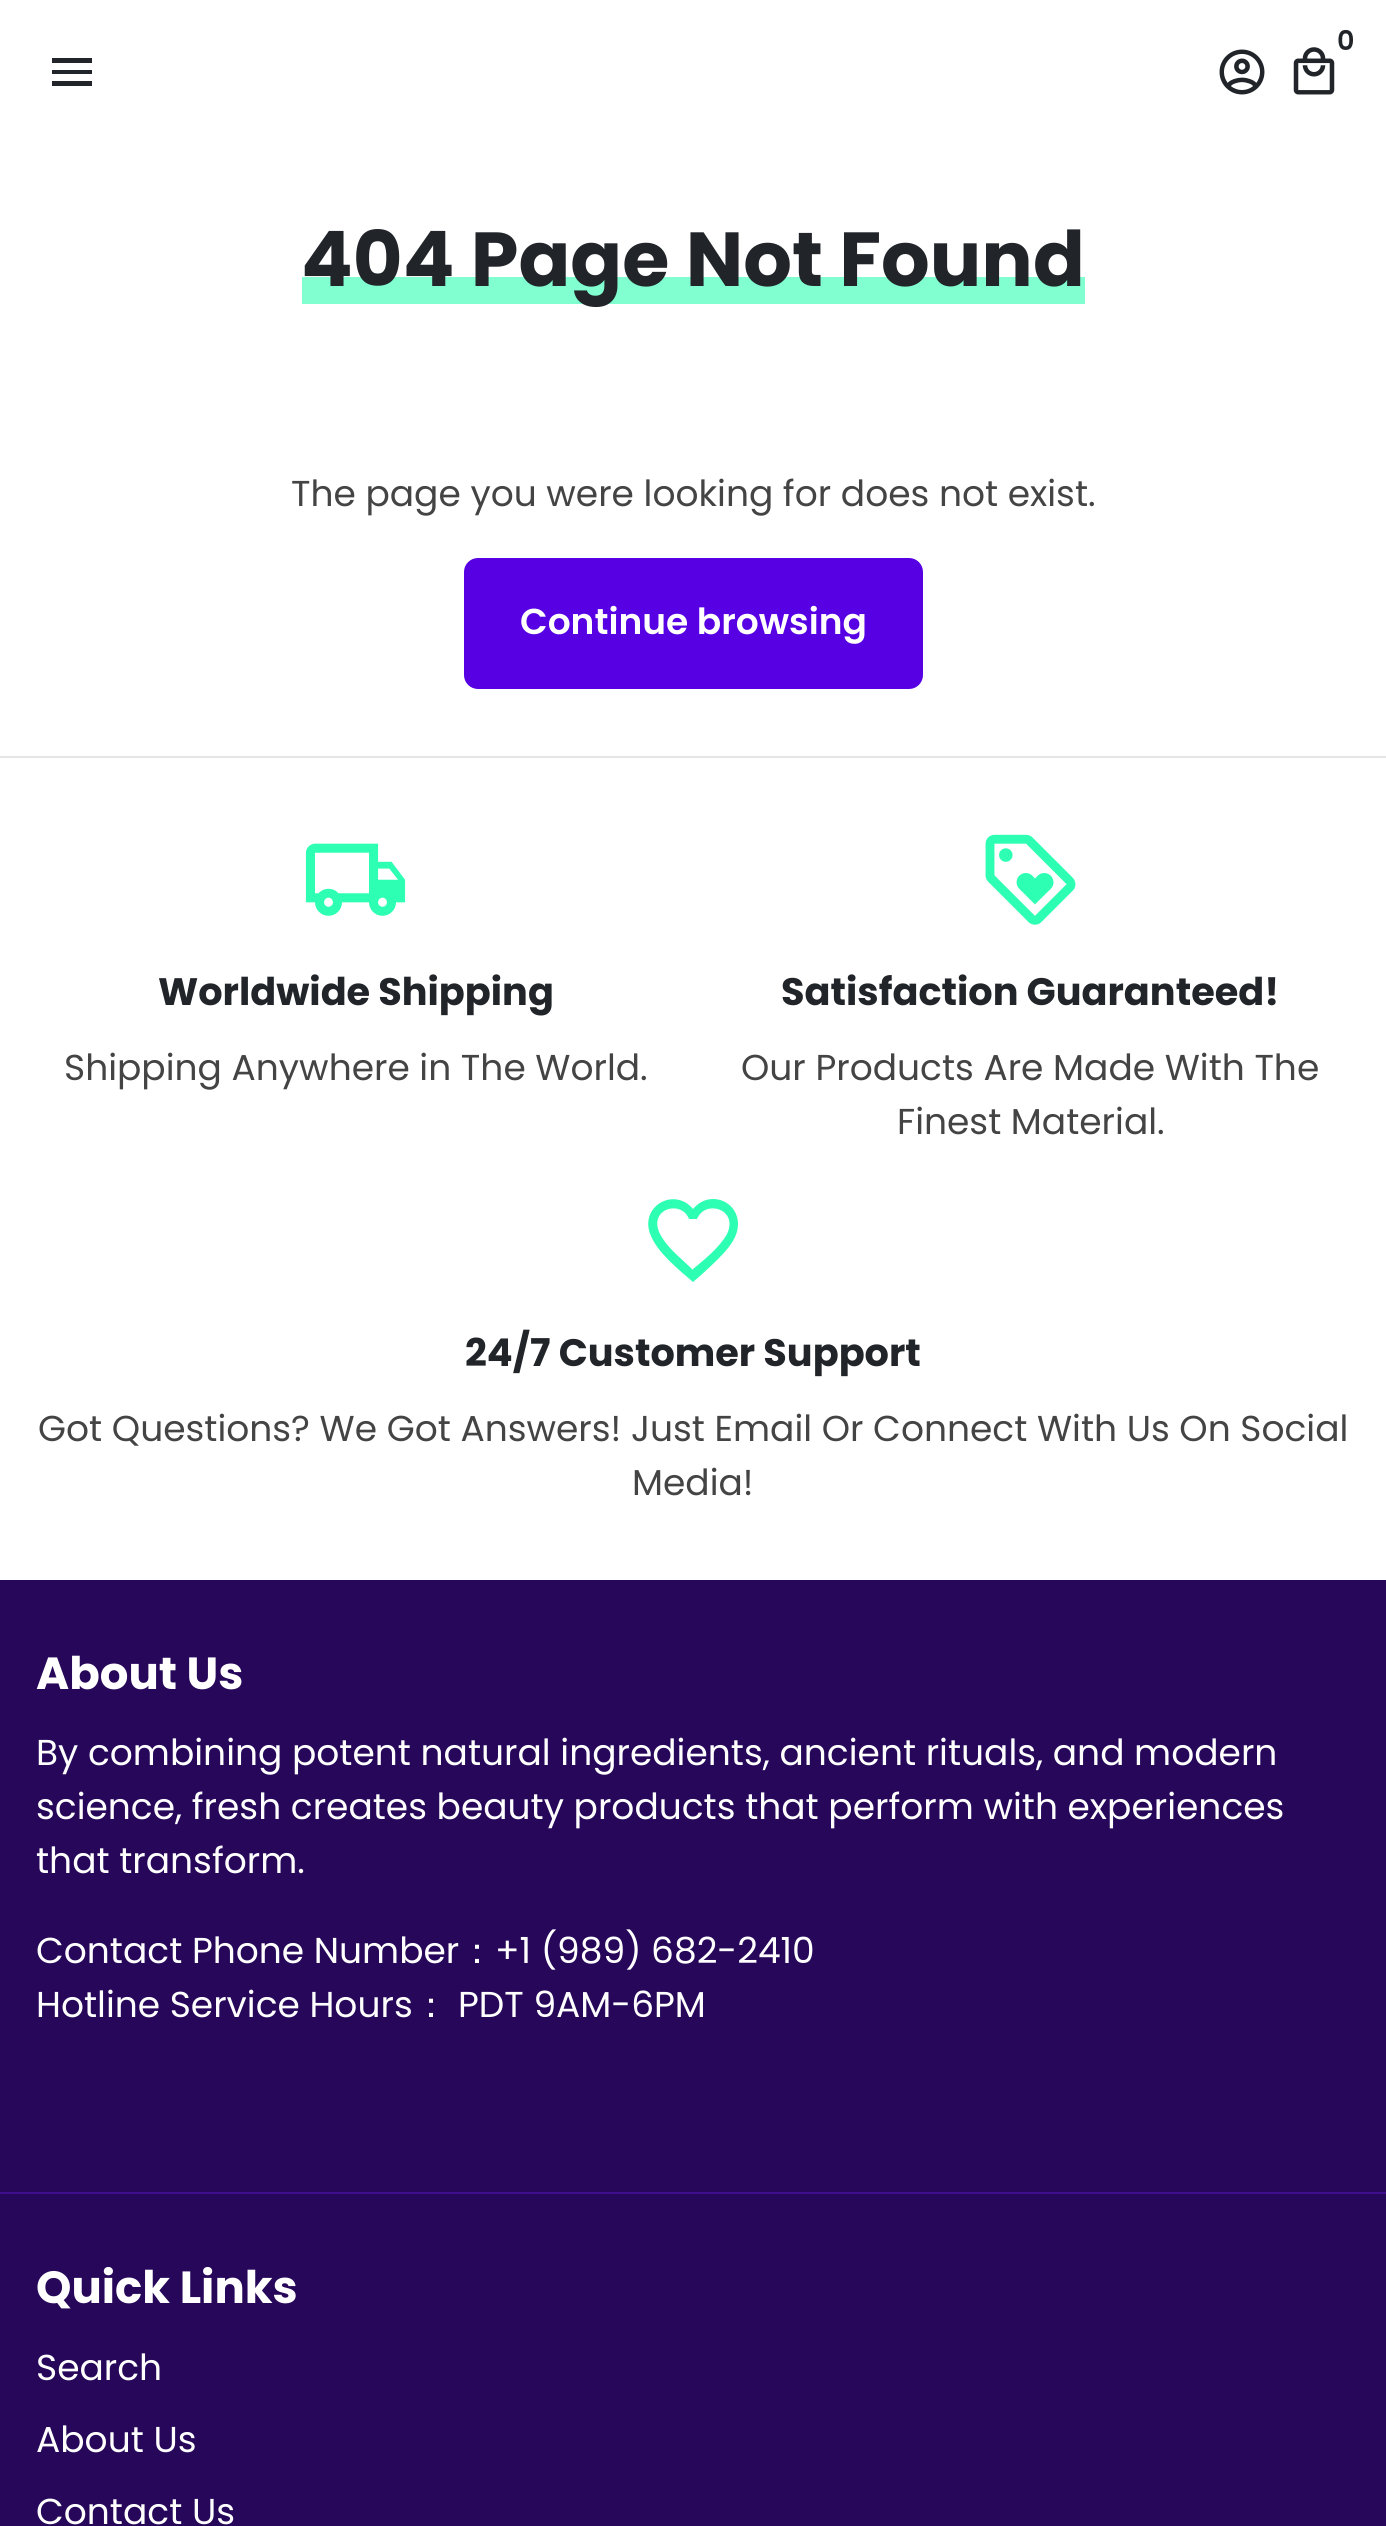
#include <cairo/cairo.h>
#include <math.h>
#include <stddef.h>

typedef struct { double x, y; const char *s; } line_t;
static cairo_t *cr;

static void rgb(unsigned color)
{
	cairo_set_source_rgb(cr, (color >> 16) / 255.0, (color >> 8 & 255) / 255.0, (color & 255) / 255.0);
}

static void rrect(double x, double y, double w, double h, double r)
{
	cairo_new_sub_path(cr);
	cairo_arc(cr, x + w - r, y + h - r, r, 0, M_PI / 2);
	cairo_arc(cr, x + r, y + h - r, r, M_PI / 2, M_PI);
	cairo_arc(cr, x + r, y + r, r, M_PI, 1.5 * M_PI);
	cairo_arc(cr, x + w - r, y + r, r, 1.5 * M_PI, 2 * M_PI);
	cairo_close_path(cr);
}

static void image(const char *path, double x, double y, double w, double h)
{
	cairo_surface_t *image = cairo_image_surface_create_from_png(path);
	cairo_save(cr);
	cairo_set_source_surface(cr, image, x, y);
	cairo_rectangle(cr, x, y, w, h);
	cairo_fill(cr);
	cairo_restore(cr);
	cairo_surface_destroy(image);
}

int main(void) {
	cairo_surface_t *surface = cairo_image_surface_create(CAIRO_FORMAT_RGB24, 1386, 2526);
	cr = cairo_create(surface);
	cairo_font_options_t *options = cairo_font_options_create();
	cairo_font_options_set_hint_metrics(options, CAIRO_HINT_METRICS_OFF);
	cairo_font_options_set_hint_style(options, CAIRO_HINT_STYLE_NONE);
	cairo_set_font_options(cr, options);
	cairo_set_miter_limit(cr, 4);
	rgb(0xffffff);
	cairo_paint(cr);
	image("img/1.png", 1293, 47, 42, 48);
	image("img/2.png", 1219, 49, 46, 46);
	rgb(0x212529);
	cairo_new_path(cr);
	cairo_move_to(cr, 52, 86);
	cairo_line_to(cr, 92, 86);
	cairo_line_to(cr, 92, 81);
	cairo_line_to(cr, 52, 81);
	cairo_close_path(cr);
	cairo_move_to(cr, 52, 74);
	cairo_line_to(cr, 92, 74);
	cairo_line_to(cr, 92, 70);
	cairo_line_to(cr, 52, 70);
	cairo_close_path(cr);
	cairo_move_to(cr, 52, 58);
	cairo_line_to(cr, 52, 63);
	cairo_line_to(cr, 92, 63);
	cairo_line_to(cr, 92, 58);
	cairo_close_path(cr);
	cairo_fill(cr);
	rgb(0x81ffd1);
	cairo_rectangle(cr, 302, 277, 783, 27);
	cairo_fill(cr);
	rgb(0x5600e3);
	rrect(465, 559, 457, 129, 13);
	cairo_fill_preserve(cr);
	cairo_stroke(cr);
	rgb(0xe5e5e5);
	cairo_rectangle(cr, 0, 756, 1386, 2);
	cairo_fill(cr);
	image("img/3.png", 305, 843, 101, 73);
	image("img/4.png", 985, 834, 91, 91);
	rgb(0x2dffb3);
	cairo_new_path(cr);
	cairo_move_to(cr, 713, 1199);
	cairo_curve_to(cr, 705, 1199, 698, 1203, 693, 1209);
	cairo_curve_to(cr, 674, 1186, 638, 1207, 651, 1236);
	cairo_curve_to(cr, 658, 1253, 679, 1270, 693, 1282);
	cairo_line_to(cr, 700, 1276);
	cairo_curve_to(cr, 723, 1255, 738, 1241, 738, 1224);
	cairo_curve_to(cr, 738, 1210, 727, 1199, 713, 1199);
	cairo_close_path(cr);
	cairo_move_to(cr, 693, 1269);
	cairo_line_to(cr, 693, 1270);
	cairo_curve_to(cr, 683, 1260, 671, 1251, 663, 1239);
	cairo_curve_to(cr, 643, 1210, 681, 1198, 689, 1219);
	cairo_line_to(cr, 697, 1219);
	cairo_curve_to(cr, 705, 1199, 739, 1209, 727, 1234);
	cairo_curve_to(cr, 720, 1247, 704, 1260, 693, 1269);
	cairo_close_path(cr);
	cairo_fill(cr);
	rgb(0x260759);
	cairo_rectangle(cr, 0, 1580, 1386, 946);
	cairo_fill(cr);
	rgb(0x3e0e8f);
	cairo_rectangle(cr, 0, 2192, 1386, 2);
	cairo_fill(cr);
	cairo_select_font_face(cr, "Poppins SemiBold", CAIRO_FONT_SLANT_NORMAL, CAIRO_FONT_WEIGHT_NORMAL);
	cairo_set_font_size(cr, 27);
	rgb(0x212529);
	cairo_move_to(cr, 1337, 50);
	cairo_show_text(cr, "0");
	cairo_select_font_face(cr, "Poppins", CAIRO_FONT_SLANT_NORMAL, CAIRO_FONT_WEIGHT_BOLD);
	cairo_set_font_size(cr, 76.5);
	cairo_move_to(cr, 301, 286);
	cairo_show_text(cr, "404 Page Not Found");
	cairo_select_font_face(cr, "Poppins", CAIRO_FONT_SLANT_NORMAL, CAIRO_FONT_WEIGHT_NORMAL);
	cairo_set_font_size(cr, 36);
	rgb(0x444444);
	cairo_move_to(cr, 291, 506);
	cairo_show_text(cr, "The page you were looking for does not exist.");
	cairo_select_font_face(cr, "Poppins SemiBold", CAIRO_FONT_SLANT_NORMAL, CAIRO_FONT_WEIGHT_NORMAL);
	rgb(0xffffff);
	cairo_move_to(cr, 520, 634);
	cairo_show_text(cr, "Continue browsing");
	cairo_select_font_face(cr, "Poppins", CAIRO_FONT_SLANT_NORMAL, CAIRO_FONT_WEIGHT_BOLD);
	cairo_set_font_size(cr, 38.25);
	rgb(0x212529);
	cairo_move_to(cr, 158, 1005);
	cairo_show_text(cr, "Worldwide Shipping");
	cairo_select_font_face(cr, "Poppins", CAIRO_FONT_SLANT_NORMAL, CAIRO_FONT_WEIGHT_NORMAL);
	cairo_set_font_size(cr, 36);
	rgb(0x444444);
	cairo_move_to(cr, 64, 1080);
	cairo_show_text(cr, "Shipping Anywhere in The World.");
	cairo_select_font_face(cr, "Poppins", CAIRO_FONT_SLANT_NORMAL, CAIRO_FONT_WEIGHT_BOLD);
	cairo_set_font_size(cr, 38.25);
	rgb(0x212529);
	cairo_move_to(cr, 781, 1005);
	cairo_show_text(cr, "Satisfaction Guaranteed!");
	cairo_select_font_face(cr, "Poppins", CAIRO_FONT_SLANT_NORMAL, CAIRO_FONT_WEIGHT_NORMAL);
	cairo_set_font_size(cr, 36);
	rgb(0x444444);
	cairo_move_to(cr, 741, 1080);
	cairo_show_text(cr, "Our Products Are Made With The");
	cairo_move_to(cr, 897, 1134);
	cairo_show_text(cr, "Finest Material.");
	cairo_select_font_face(cr, "Poppins", CAIRO_FONT_SLANT_NORMAL, CAIRO_FONT_WEIGHT_BOLD);
	cairo_set_font_size(cr, 38.25);
	rgb(0x212529);
	cairo_move_to(cr, 465, 1366);
	cairo_show_text(cr, "24/7 Customer Support");
	cairo_select_font_face(cr, "Poppins", CAIRO_FONT_SLANT_NORMAL, CAIRO_FONT_WEIGHT_NORMAL);
	cairo_set_font_size(cr, 36);
	rgb(0x444444);
	cairo_move_to(cr, 38, 1441);
	cairo_show_text(cr, "Got Questions? We Got Answers! Just Email Or Connect With Us On Social");
	cairo_move_to(cr, 632, 1495);
	cairo_show_text(cr, "Media!");
	cairo_select_font_face(cr, "Poppins", CAIRO_FONT_SLANT_NORMAL, CAIRO_FONT_WEIGHT_BOLD);
	cairo_set_font_size(cr, 45);
	rgb(0xffffff);
	cairo_move_to(cr, 36, 1689);
	cairo_show_text(cr, "About Us");
	cairo_select_font_face(cr, "Poppins", CAIRO_FONT_SLANT_NORMAL, CAIRO_FONT_WEIGHT_NORMAL);
	cairo_set_font_size(cr, 36);
	{
		static const line_t items[] = {
			{36, 1765, "By combining potent natural ingredients, ancient rituals, and modern"},
			{36, 1819, "science, fresh creates beauty products that perform with experiences"},
			{36, 1873, "that transform."},
			{36, 1963, "Contact Phone Number"},
		};
		for (size_t i = 0; i < sizeof items / sizeof *items; i++) {
			cairo_move_to(cr, items[i].x, items[i].y);
			cairo_show_text(cr, items[i].s);
		}
	}
	cairo_select_font_face(cr, "WenQuanYi Zen Hei Medium", CAIRO_FONT_SLANT_NORMAL, CAIRO_FONT_WEIGHT_NORMAL);
	cairo_move_to(cr, 459, 1963);
	cairo_show_text(cr, "：");
	cairo_select_font_face(cr, "Poppins", CAIRO_FONT_SLANT_NORMAL, CAIRO_FONT_WEIGHT_NORMAL);
	cairo_move_to(cr, 495, 1963);
	cairo_show_text(cr, "+1 (989) 682-2410");
	cairo_move_to(cr, 36, 2017);
	cairo_show_text(cr, "Hotline Service Hours");
	cairo_select_font_face(cr, "WenQuanYi Zen Hei Medium", CAIRO_FONT_SLANT_NORMAL, CAIRO_FONT_WEIGHT_NORMAL);
	cairo_move_to(cr, 413, 2017);
	cairo_show_text(cr, "：");
	cairo_select_font_face(cr, "Poppins", CAIRO_FONT_SLANT_NORMAL, CAIRO_FONT_WEIGHT_NORMAL);
	cairo_move_to(cr, 458, 2017);
	cairo_show_text(cr, "PDT 9AM-6PM");
	cairo_select_font_face(cr, "Poppins", CAIRO_FONT_SLANT_NORMAL, CAIRO_FONT_WEIGHT_BOLD);
	cairo_set_font_size(cr, 45);
	cairo_move_to(cr, 36, 2303);
	cairo_show_text(cr, "Quick Links");
	cairo_select_font_face(cr, "Poppins", CAIRO_FONT_SLANT_NORMAL, CAIRO_FONT_WEIGHT_NORMAL);
	cairo_set_font_size(cr, 36);
	{
		static const line_t items[] = {
			{36, 2380, "Search"},
			{36, 2452, "About Us"},
			{36, 2524, "Contact Us"},
		};
		for (size_t i = 0; i < sizeof items / sizeof *items; i++) {
			cairo_move_to(cr, items[i].x, items[i].y);
			cairo_show_text(cr, items[i].s);
		}
	}
	cairo_surface_write_to_png(surface, "page.png");
	cairo_font_options_destroy(options);
	cairo_destroy(cr);
	cairo_surface_destroy(surface);
	return 0;
}
